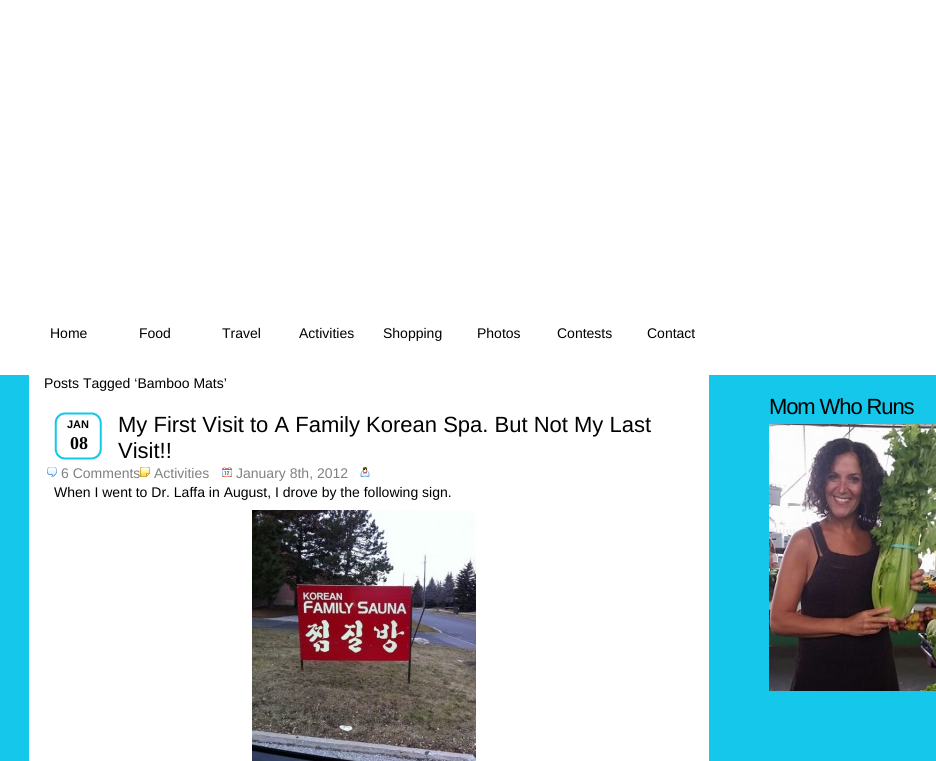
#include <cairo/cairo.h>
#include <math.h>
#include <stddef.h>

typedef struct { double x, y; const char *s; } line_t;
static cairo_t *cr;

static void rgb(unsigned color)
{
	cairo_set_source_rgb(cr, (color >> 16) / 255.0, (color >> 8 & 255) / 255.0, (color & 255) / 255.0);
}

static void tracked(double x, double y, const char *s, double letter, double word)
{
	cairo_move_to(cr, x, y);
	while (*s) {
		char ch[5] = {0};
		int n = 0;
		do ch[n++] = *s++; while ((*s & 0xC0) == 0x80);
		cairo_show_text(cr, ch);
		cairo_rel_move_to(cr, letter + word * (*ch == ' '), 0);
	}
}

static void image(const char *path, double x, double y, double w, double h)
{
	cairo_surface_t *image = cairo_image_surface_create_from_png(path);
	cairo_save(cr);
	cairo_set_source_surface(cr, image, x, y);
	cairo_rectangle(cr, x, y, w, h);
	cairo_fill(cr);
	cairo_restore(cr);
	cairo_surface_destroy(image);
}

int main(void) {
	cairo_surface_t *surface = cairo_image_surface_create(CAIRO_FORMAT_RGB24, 936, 761);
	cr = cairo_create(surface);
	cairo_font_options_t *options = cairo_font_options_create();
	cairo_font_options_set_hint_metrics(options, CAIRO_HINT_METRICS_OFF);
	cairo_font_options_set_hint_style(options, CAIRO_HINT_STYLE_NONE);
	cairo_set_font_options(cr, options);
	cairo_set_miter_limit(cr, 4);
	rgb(0xffffff);
	cairo_paint(cr);
	rgb(0x14c7eb);
	cairo_rectangle(cr, 0, 375, 936, 386);
	cairo_fill(cr);
	rgb(0xffffff);
	cairo_rectangle(cr, 29, 375, 680, 386);
	cairo_fill(cr);
	image("img/1.png", 47, 467, 10, 10);
	image("img/2.png", 140, 467, 10, 10);
	image("img/3.png", 222, 467, 10, 10);
	image("img/4.png", 360, 467, 10, 10);
	image("img/5.png", 54, 412, 48, 48);
	image("img/6.png", 252, 510, 224, 251);
	image("img/7.png", 769, 424, 167, 267);
	cairo_select_font_face(cr, "Liberation Sans", CAIRO_FONT_SLANT_NORMAL, CAIRO_FONT_WEIGHT_NORMAL);
	cairo_set_font_size(cr, 14);
	rgb(0x000000);
	{
		static const line_t items[] = {
			{50, 338, "Home"},
			{139, 338, "Food"},
			{222, 338, "Travel"},
			{299, 338, "Activities"},
			{383, 338, "Shopping"},
			{477, 338, "Photos"},
			{557, 338, "Contests"},
			{647, 338, "Contact"},
			{44, 388, "Posts Tagged ‘Bamboo Mats’"},
		};
		for (size_t i = 0; i < sizeof items / sizeof *items; i++) {
			cairo_move_to(cr, items[i].x, items[i].y);
			cairo_show_text(cr, items[i].s);
		}
	}
	cairo_set_font_size(cr, 22);
	cairo_move_to(cr, 118, 432);
	cairo_show_text(cr, "My First Visit to A Family Korean Spa. But Not My Last");
	cairo_move_to(cr, 118, 458);
	cairo_show_text(cr, "Visit!!");
	cairo_set_font_size(cr, 14);
	rgb(0x808080);
	{
		static const line_t items[] = {
			{61, 478, "6 Comments"},
			{154, 478, "Activities"},
			{236, 478, "January 8th, 2012"},
		};
		for (size_t i = 0; i < sizeof items / sizeof *items; i++) {
			cairo_move_to(cr, items[i].x, items[i].y);
			cairo_show_text(cr, items[i].s);
		}
	}
	cairo_select_font_face(cr, "Liberation Sans", CAIRO_FONT_SLANT_NORMAL, CAIRO_FONT_WEIGHT_BOLD);
	cairo_set_font_size(cr, 11);
	rgb(0x000000);
	cairo_move_to(cr, 67, 428);
	cairo_show_text(cr, "JAN");
	cairo_select_font_face(cr, "Liberation Serif", CAIRO_FONT_SLANT_NORMAL, CAIRO_FONT_WEIGHT_BOLD);
	cairo_set_font_size(cr, 18);
	cairo_move_to(cr, 70, 449);
	cairo_show_text(cr, "08");
	cairo_select_font_face(cr, "Liberation Sans", CAIRO_FONT_SLANT_NORMAL, CAIRO_FONT_WEIGHT_NORMAL);
	cairo_set_font_size(cr, 14);
	cairo_move_to(cr, 54, 497);
	cairo_show_text(cr, "When I went to Dr. Laffa in August, I drove by the following sign.");
	cairo_set_font_size(cr, 22);
	tracked(769, 414, "Mom Who Runs", -1.1, 0);
	cairo_surface_write_to_png(surface, "page.png");
	cairo_font_options_destroy(options);
	cairo_destroy(cr);
	cairo_surface_destroy(surface);
	return 0;
}
